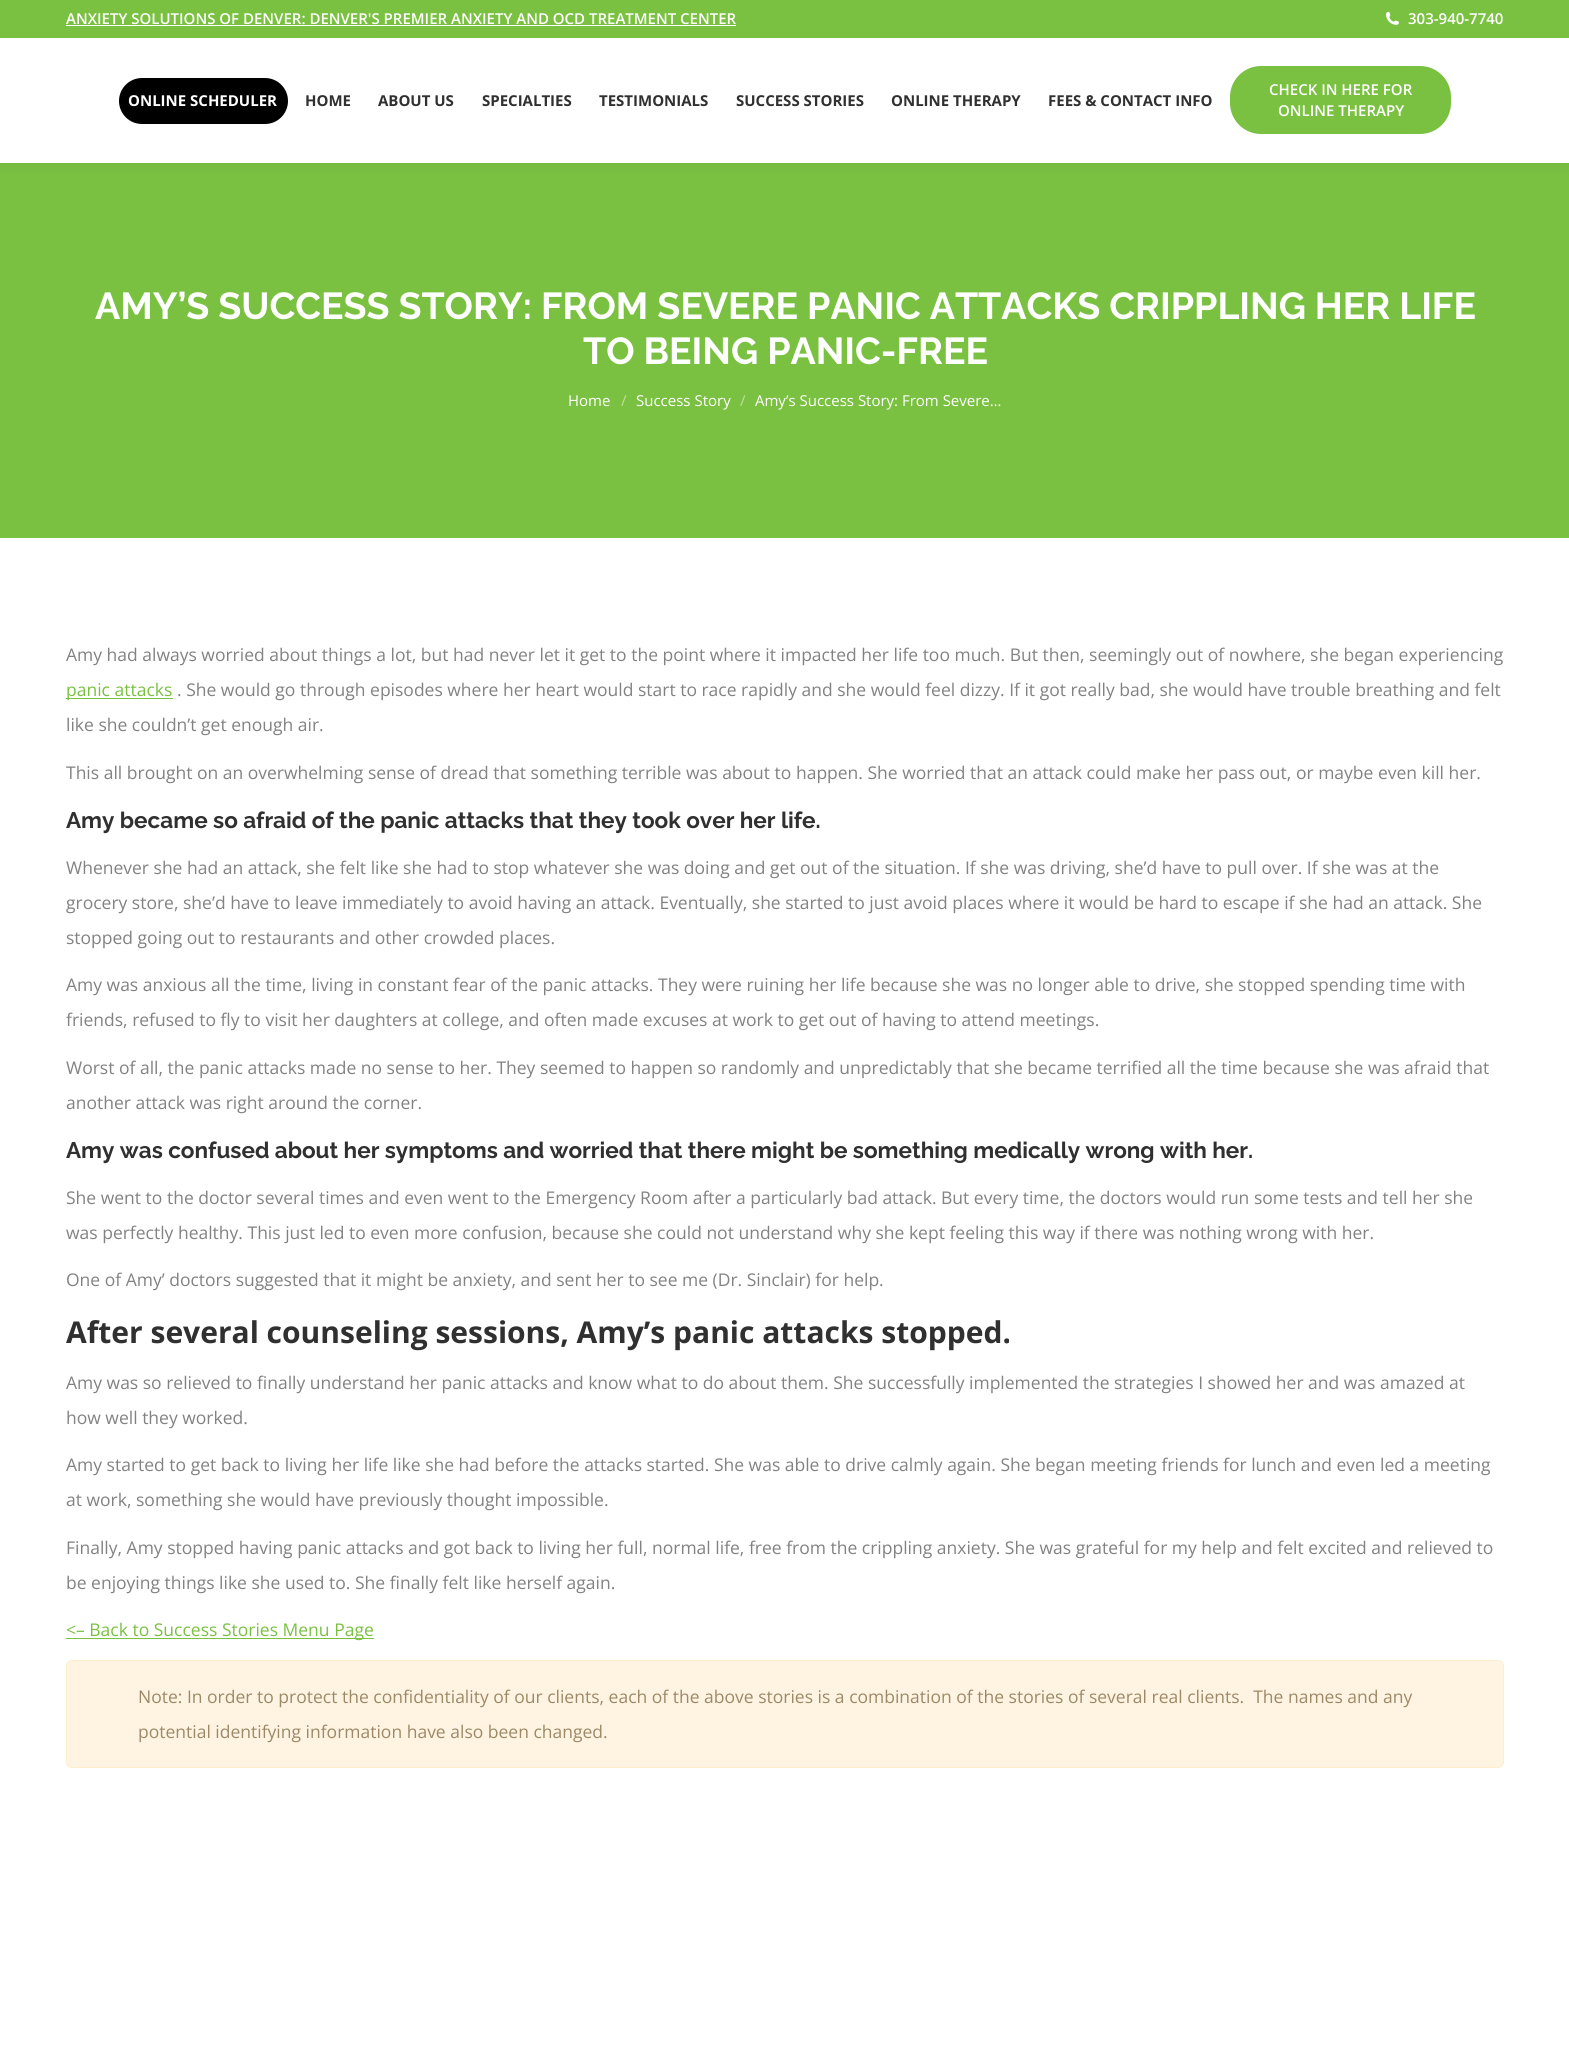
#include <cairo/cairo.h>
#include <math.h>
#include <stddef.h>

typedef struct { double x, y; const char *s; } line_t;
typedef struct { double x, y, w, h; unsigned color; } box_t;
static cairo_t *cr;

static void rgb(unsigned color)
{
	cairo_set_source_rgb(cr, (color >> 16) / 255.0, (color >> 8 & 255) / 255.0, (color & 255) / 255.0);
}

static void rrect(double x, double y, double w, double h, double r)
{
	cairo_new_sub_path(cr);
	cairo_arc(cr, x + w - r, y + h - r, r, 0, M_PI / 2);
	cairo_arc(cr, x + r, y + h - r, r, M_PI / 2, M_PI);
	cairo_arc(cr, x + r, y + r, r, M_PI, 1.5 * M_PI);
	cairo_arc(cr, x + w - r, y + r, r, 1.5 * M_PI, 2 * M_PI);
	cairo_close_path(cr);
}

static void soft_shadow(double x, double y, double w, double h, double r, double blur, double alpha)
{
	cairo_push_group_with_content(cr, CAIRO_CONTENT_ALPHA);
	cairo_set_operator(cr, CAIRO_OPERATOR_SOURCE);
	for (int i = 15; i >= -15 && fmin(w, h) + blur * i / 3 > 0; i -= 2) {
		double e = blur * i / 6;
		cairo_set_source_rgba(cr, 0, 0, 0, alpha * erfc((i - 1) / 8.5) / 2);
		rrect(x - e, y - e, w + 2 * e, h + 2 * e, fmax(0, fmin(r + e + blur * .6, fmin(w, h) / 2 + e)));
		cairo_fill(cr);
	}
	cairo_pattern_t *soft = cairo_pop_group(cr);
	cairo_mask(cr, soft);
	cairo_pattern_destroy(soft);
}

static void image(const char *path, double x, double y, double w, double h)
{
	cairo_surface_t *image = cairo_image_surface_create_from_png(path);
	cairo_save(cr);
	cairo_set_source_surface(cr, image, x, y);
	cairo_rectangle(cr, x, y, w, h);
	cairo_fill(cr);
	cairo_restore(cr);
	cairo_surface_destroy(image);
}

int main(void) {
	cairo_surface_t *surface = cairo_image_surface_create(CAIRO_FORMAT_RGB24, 1569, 2046);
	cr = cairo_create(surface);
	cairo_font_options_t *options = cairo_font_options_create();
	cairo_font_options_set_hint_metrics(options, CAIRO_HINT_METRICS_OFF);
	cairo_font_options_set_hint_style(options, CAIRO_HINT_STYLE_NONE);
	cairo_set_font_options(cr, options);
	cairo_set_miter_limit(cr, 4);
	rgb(0xffffff);
	cairo_paint(cr);
	rgb(0x7ac141);
	cairo_rectangle(cr, 0, 163, 1569, 375);
	cairo_fill(cr);
	rgb(0x000000);
	soft_shadow(-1, -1, 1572, 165, 0, 9.5, 0.07);
	{
		static const box_t items[] = {
			{0, 38, 1569, 125, 0xffffff},
			{0, 0, 1569, 38, 0x7ac141},
			{66, 25, 670, 1, 0xffffff},
		};
		for (size_t i = 0; i < sizeof items / sizeof *items; i++) {
			rgb(items[i].color);
			cairo_rectangle(cr, items[i].x, items[i].y, items[i].w, items[i].h);
			cairo_fill(cr);
		}
	}
	image("img/1.png", 1386, 11, 13, 14);
	rgb(0x000000);
	rrect(119, 78, 169, 46, 23);
	cairo_fill(cr);
	rgb(0x7ac141);
	rrect(1230, 66, 221, 68, 31);
	cairo_fill(cr);
	cairo_rectangle(cr, 66, 698, 107, 1);
	cairo_fill(cr);
	cairo_rectangle(cr, 66, 1638, 308, 1);
	cairo_fill(cr);
	rgb(0xfff4e2);
	rrect(66.5, 1660.5, 1437, 107, 5.5);
	cairo_fill_preserve(cr);
	rgb(0xffeccc);
	cairo_set_line_width(cr, 1);
	cairo_stroke(cr);
	cairo_select_font_face(cr, "Open Sans SemiBold", CAIRO_FONT_SLANT_NORMAL, CAIRO_FONT_WEIGHT_NORMAL);
	cairo_set_font_size(cr, 15);
	rgb(0xffffff);
	cairo_move_to(cr, 66, 24);
	cairo_show_text(cr, "ANXIETY SOLUTIONS OF DENVER: DENVER'S PREMIER ANXIETY AND OCD TREATMENT CENTER");
	cairo_move_to(cr, 1408, 24);
	cairo_show_text(cr, "303-940-7740");
	cairo_select_font_face(cr, "Open Sans", CAIRO_FONT_SLANT_NORMAL, CAIRO_FONT_WEIGHT_BOLD);
	cairo_move_to(cr, 128, 106);
	cairo_show_text(cr, "ONLINE SCHEDULER");
	rgb(0x303030);
	{
		static const line_t items[] = {
			{305, 106, "HOME"},
			{378, 106, "ABOUT US"},
			{482, 106, "SPECIALTIES"},
			{599, 106, "TESTIMONIALS"},
			{736, 106, "SUCCESS STORIES"},
			{891, 106, "ONLINE THERAPY"},
			{1048, 106, "FEES & CONTACT INFO"},
		};
		for (size_t i = 0; i < sizeof items / sizeof *items; i++) {
			cairo_move_to(cr, items[i].x, items[i].y);
			cairo_show_text(cr, items[i].s);
		}
	}
	cairo_select_font_face(cr, "Open Sans SemiBold", CAIRO_FONT_SLANT_NORMAL, CAIRO_FONT_WEIGHT_NORMAL);
	rgb(0xffffff);
	cairo_move_to(cr, 1269, 95);
	cairo_show_text(cr, "CHECK IN HERE FOR");
	cairo_move_to(cr, 1278, 116);
	cairo_show_text(cr, "ONLINE THERAPY");
	cairo_select_font_face(cr, "Raleway", CAIRO_FONT_SLANT_NORMAL, CAIRO_FONT_WEIGHT_BOLD);
	cairo_set_font_size(cr, 37.5);
	cairo_move_to(cr, 95, 319);
	cairo_show_text(cr, "AMY’S SUCCESS STORY: FROM SEVERE PANIC ATTACKS CRIPPLING HER LIFE");
	cairo_move_to(cr, 583, 364);
	cairo_show_text(cr, "TO BEING PANIC-FREE");
	cairo_select_font_face(cr, "Open Sans", CAIRO_FONT_SLANT_NORMAL, CAIRO_FONT_WEIGHT_NORMAL);
	cairo_set_font_size(cr, 15);
	cairo_move_to(cr, 568, 406);
	cairo_show_text(cr, "Home");
	rgb(0xbde0a0);
	cairo_move_to(cr, 621, 406);
	cairo_show_text(cr, "/");
	rgb(0xffffff);
	cairo_move_to(cr, 636, 406);
	cairo_show_text(cr, "Success Story");
	rgb(0xbde0a0);
	cairo_move_to(cr, 740, 406);
	cairo_show_text(cr, "/");
	rgb(0xffffff);
	cairo_move_to(cr, 755, 406);
	cairo_show_text(cr, "Amy’s Success Story: From Severe…");
	cairo_set_font_size(cr, 17.5);
	rgb(0x828282);
	cairo_move_to(cr, 66, 661);
	cairo_show_text(cr, "Amy had always worried about things a lot, but had never let it get to the point where it impacted her life too much. But then, seemingly out of nowhere, she began experiencing");
	rgb(0x7ac141);
	cairo_move_to(cr, 66, 696);
	cairo_show_text(cr, "panic attacks");
	rgb(0x828282);
	{
		static const line_t items[] = {
			{177, 696, ". She would go through episodes where her heart would start to race rapidly and she would feel dizzy. If it got really bad, she would have trouble breathing and felt"},
			{66, 731, "like she couldn’t get enough air."},
			{66, 779, "This all brought on an overwhelming sense of dread that something terrible was about to happen. She worried that an attack could make her pass out, or maybe even kill her."},
		};
		for (size_t i = 0; i < sizeof items / sizeof *items; i++) {
			cairo_move_to(cr, items[i].x, items[i].y);
			cairo_show_text(cr, items[i].s);
		}
	}
	cairo_select_font_face(cr, "Raleway", CAIRO_FONT_SLANT_NORMAL, CAIRO_FONT_WEIGHT_BOLD);
	cairo_set_font_size(cr, 22.5);
	rgb(0x303030);
	cairo_move_to(cr, 66, 828);
	cairo_show_text(cr, "Amy became so afraid of the panic attacks that they took over her life.");
	cairo_select_font_face(cr, "Open Sans", CAIRO_FONT_SLANT_NORMAL, CAIRO_FONT_WEIGHT_NORMAL);
	cairo_set_font_size(cr, 17.5);
	rgb(0x828282);
	{
		static const line_t items[] = {
			{66, 874, "Whenever she had an attack, she felt like she had to stop whatever she was doing and get out of the situation. If she was driving, she’d have to pull over. If she was at the"},
			{66, 909, "grocery store, she’d have to leave immediately to avoid having an attack. Eventually, she started to just avoid places where it would be hard to escape if she had an attack. She"},
			{66, 944, "stopped going out to restaurants and other crowded places."},
			{66, 991, "Amy was anxious all the time, living in constant fear of the panic attacks. They were ruining her life because she was no longer able to drive, she stopped spending time with"},
			{66, 1026, "friends, refused to fly to visit her daughters at college, and often made excuses at work to get out of having to attend meetings."},
			{66, 1074, "Worst of all, the panic attacks made no sense to her. They seemed to happen so randomly and unpredictably that she became terrified all the time because she was afraid that"},
			{66, 1109, "another attack was right around the corner."},
		};
		for (size_t i = 0; i < sizeof items / sizeof *items; i++) {
			cairo_move_to(cr, items[i].x, items[i].y);
			cairo_show_text(cr, items[i].s);
		}
	}
	cairo_select_font_face(cr, "Raleway", CAIRO_FONT_SLANT_NORMAL, CAIRO_FONT_WEIGHT_BOLD);
	cairo_set_font_size(cr, 22.5);
	rgb(0x303030);
	cairo_move_to(cr, 66, 1158);
	cairo_show_text(cr, "Amy was confused about her symptoms and worried that there might be something medically wrong with her.");
	cairo_select_font_face(cr, "Open Sans", CAIRO_FONT_SLANT_NORMAL, CAIRO_FONT_WEIGHT_NORMAL);
	cairo_set_font_size(cr, 17.5);
	rgb(0x828282);
	{
		static const line_t items[] = {
			{66, 1204, "She went to the doctor several times and even went to the Emergency Room after a particularly bad attack. But every time, the doctors would run some tests and tell her she"},
			{66, 1239, "was perfectly healthy. This just led to even more confusion, because she could not understand why she kept feeling this way if there was nothing wrong with her."},
			{66, 1286, "One of Amy’ doctors suggested that it might be anxiety, and sent her to see me (Dr. Sinclair) for help."},
		};
		for (size_t i = 0; i < sizeof items / sizeof *items; i++) {
			cairo_move_to(cr, items[i].x, items[i].y);
			cairo_show_text(cr, items[i].s);
		}
	}
	cairo_select_font_face(cr, "Open Sans", CAIRO_FONT_SLANT_NORMAL, CAIRO_FONT_WEIGHT_BOLD);
	cairo_set_font_size(cr, 30);
	rgb(0x303030);
	cairo_move_to(cr, 66, 1343);
	cairo_show_text(cr, "After several counseling sessions, Amy’s panic attacks stopped.");
	cairo_select_font_face(cr, "Open Sans", CAIRO_FONT_SLANT_NORMAL, CAIRO_FONT_WEIGHT_NORMAL);
	cairo_set_font_size(cr, 17.5);
	rgb(0x828282);
	{
		static const line_t items[] = {
			{66, 1389, "Amy was so relieved to finally understand her panic attacks and know what to do about them. She successfully implemented the strategies I showed her and was amazed at"},
			{66, 1424, "how well they worked."},
			{66, 1471, "Amy started to get back to living her life like she had before the attacks started. She was able to drive calmly again. She began meeting friends for lunch and even led a meeting"},
			{66, 1506, "at work, something she would have previously thought impossible."},
			{66, 1554, "Finally, Amy stopped having panic attacks and got back to living her full, normal life, free from the crippling anxiety. She was grateful for my help and felt excited and relieved to"},
			{66, 1589, "be enjoying things like she used to. She finally felt like herself again."},
		};
		for (size_t i = 0; i < sizeof items / sizeof *items; i++) {
			cairo_move_to(cr, items[i].x, items[i].y);
			cairo_show_text(cr, items[i].s);
		}
	}
	rgb(0x7ac141);
	cairo_move_to(cr, 66, 1636);
	cairo_show_text(cr, "<– Back to Success Stories Menu Page");
	rgb(0x9d8967);
	cairo_move_to(cr, 138, 1703);
	cairo_show_text(cr, "Note: In order to protect the confidentiality of our clients, each of the above stories is a combination of the stories of several real clients.  The names and any");
	cairo_move_to(cr, 138, 1738);
	cairo_show_text(cr, "potential identifying information have also been changed.");
	cairo_surface_write_to_png(surface, "page.png");
	cairo_font_options_destroy(options);
	cairo_destroy(cr);
	cairo_surface_destroy(surface);
	return 0;
}
